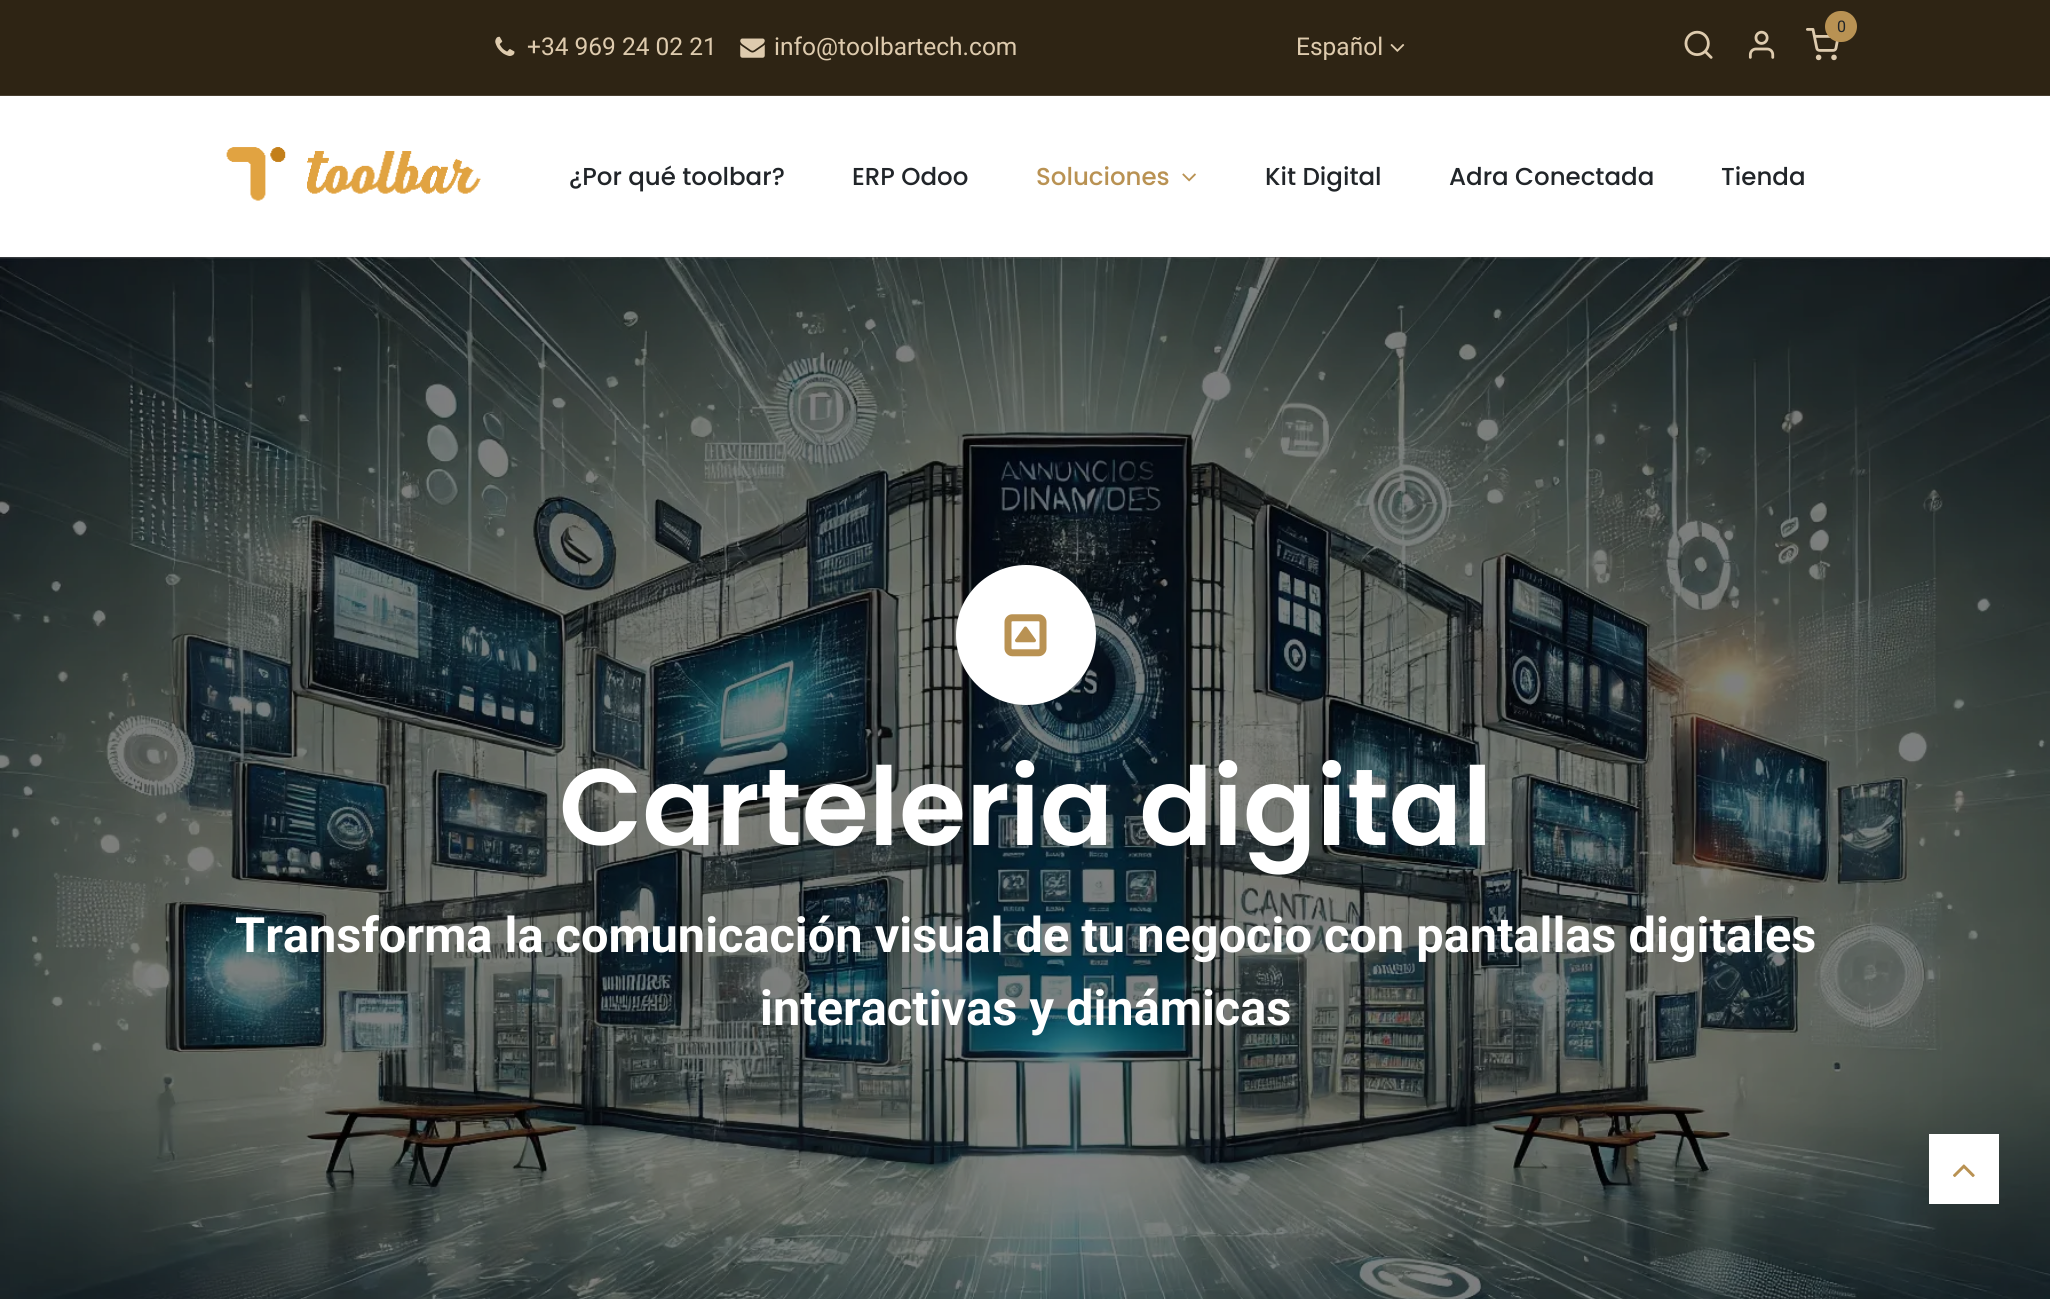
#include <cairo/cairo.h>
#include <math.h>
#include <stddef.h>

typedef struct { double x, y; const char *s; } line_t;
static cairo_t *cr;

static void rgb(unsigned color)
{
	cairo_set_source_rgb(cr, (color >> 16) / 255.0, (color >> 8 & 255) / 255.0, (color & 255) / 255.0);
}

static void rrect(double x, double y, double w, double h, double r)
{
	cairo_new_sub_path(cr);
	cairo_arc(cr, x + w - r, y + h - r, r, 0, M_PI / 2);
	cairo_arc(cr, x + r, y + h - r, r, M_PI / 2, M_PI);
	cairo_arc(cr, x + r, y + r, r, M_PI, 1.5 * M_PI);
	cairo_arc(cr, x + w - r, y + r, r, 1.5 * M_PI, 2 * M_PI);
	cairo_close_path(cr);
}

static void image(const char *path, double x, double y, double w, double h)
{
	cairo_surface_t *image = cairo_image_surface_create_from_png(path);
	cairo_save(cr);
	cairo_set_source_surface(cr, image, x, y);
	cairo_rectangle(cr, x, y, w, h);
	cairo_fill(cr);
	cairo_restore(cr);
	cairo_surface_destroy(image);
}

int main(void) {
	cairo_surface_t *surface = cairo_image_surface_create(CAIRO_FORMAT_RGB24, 2050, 1299);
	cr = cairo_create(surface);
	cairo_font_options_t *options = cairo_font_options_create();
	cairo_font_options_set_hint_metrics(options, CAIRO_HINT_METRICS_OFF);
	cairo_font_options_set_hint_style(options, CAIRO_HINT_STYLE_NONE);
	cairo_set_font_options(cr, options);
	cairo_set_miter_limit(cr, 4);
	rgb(0xffffff);
	cairo_paint(cr);
	rgb(0x2e2414);
	cairo_rectangle(cr, 0, 0, 2050, 95);
	cairo_fill(cr);
	rgb(0x473e30);
	cairo_rectangle(cr, 0, 95, 2050, 1);
	cairo_fill(cr);
	image("img/1.png", 1806, 28, 33, 33);
	rgb(0xb99253);
	rrect(1825, 11, 32, 31, 15.5);
	cairo_fill(cr);
	image("img/2.png", 1684, 30, 29, 29);
	image("img/3.png", 1748, 30, 27, 29);
	image("img/4.png", 495, 36, 20, 20);
	image("img/5.png", 740, 38, 25, 20);
	image("img/6.png", 1390, 44, 15, 8);
	image("img/7.png", 226, 147, 255, 54);
	image("img/8.png", 1182, 173, 14, 9);
	rgb(0x404040);
	cairo_rectangle(cr, 0, 257, 2050, 1);
	cairo_fill(cr);
	image("img/9.png", 0, 257, 2050, 1042);
	rgb(0xffffff);
	cairo_arc(cr, 1026, 635, 70, 0, 2 * M_PI);
	cairo_fill(cr);
	image("img/10.png", 1004, 614, 43, 43);
	cairo_rectangle(cr, 1929, 1134, 70, 70);
	cairo_fill(cr);
	image("img/11.png", 1953, 1164, 22, 14);
	cairo_select_font_face(cr, "Roboto", CAIRO_FONT_SLANT_NORMAL, CAIRO_FONT_WEIGHT_NORMAL);
	cairo_set_font_size(cr, 16);
	rgb(0x212529);
	cairo_move_to(cr, 1837, 32);
	cairo_show_text(cr, "0");
	cairo_set_font_size(cr, 24.5);
	rgb(0xdecbae);
	{
		static const line_t items[] = {
			{527, 55, "+34 969 24 02 21"},
			{774, 55, "info@toolbartech.com"},
			{1296, 55, "Español"},
		};
		for (size_t i = 0; i < sizeof items / sizeof *items; i++) {
			cairo_move_to(cr, items[i].x, items[i].y);
			cairo_show_text(cr, items[i].s);
		}
	}
	cairo_select_font_face(cr, "Poppins Medium", CAIRO_FONT_SLANT_NORMAL, CAIRO_FONT_WEIGHT_NORMAL);
	rgb(0x212529);
	cairo_move_to(cr, 569, 185);
	cairo_show_text(cr, "¿Por qué toolbar?");
	cairo_move_to(cr, 852, 185);
	cairo_show_text(cr, "ERP Odoo");
	rgb(0xb99253);
	cairo_move_to(cr, 1036, 185);
	cairo_show_text(cr, "Soluciones");
	rgb(0x212529);
	{
		static const line_t items[] = {
			{1265, 185, "Kit Digital"},
			{1449, 185, "Adra Conectada"},
			{1721, 185, "Tienda"},
		};
		for (size_t i = 0; i < sizeof items / sizeof *items; i++) {
			cairo_move_to(cr, items[i].x, items[i].y);
			cairo_show_text(cr, items[i].s);
		}
	}
	cairo_select_font_face(cr, "Poppins SemiBold", CAIRO_FONT_SLANT_NORMAL, CAIRO_FONT_WEIGHT_NORMAL);
	cairo_set_font_size(cr, 108.5);
	rgb(0xffffff);
	cairo_move_to(cr, 559, 845);
	cairo_show_text(cr, "Carteleria digital");
	cairo_select_font_face(cr, "Roboto", CAIRO_FONT_SLANT_NORMAL, CAIRO_FONT_WEIGHT_BOLD);
	cairo_set_font_size(cr, 48.7);
	cairo_move_to(cr, 235, 952);
	cairo_show_text(cr, "Transforma la comunicación visual de tu negocio con pantallas digitales");
	cairo_move_to(cr, 760, 1025);
	cairo_show_text(cr, "interactivas y dinámicas");
	cairo_surface_write_to_png(surface, "page.png");
	cairo_font_options_destroy(options);
	cairo_destroy(cr);
	cairo_surface_destroy(surface);
	return 0;
}
